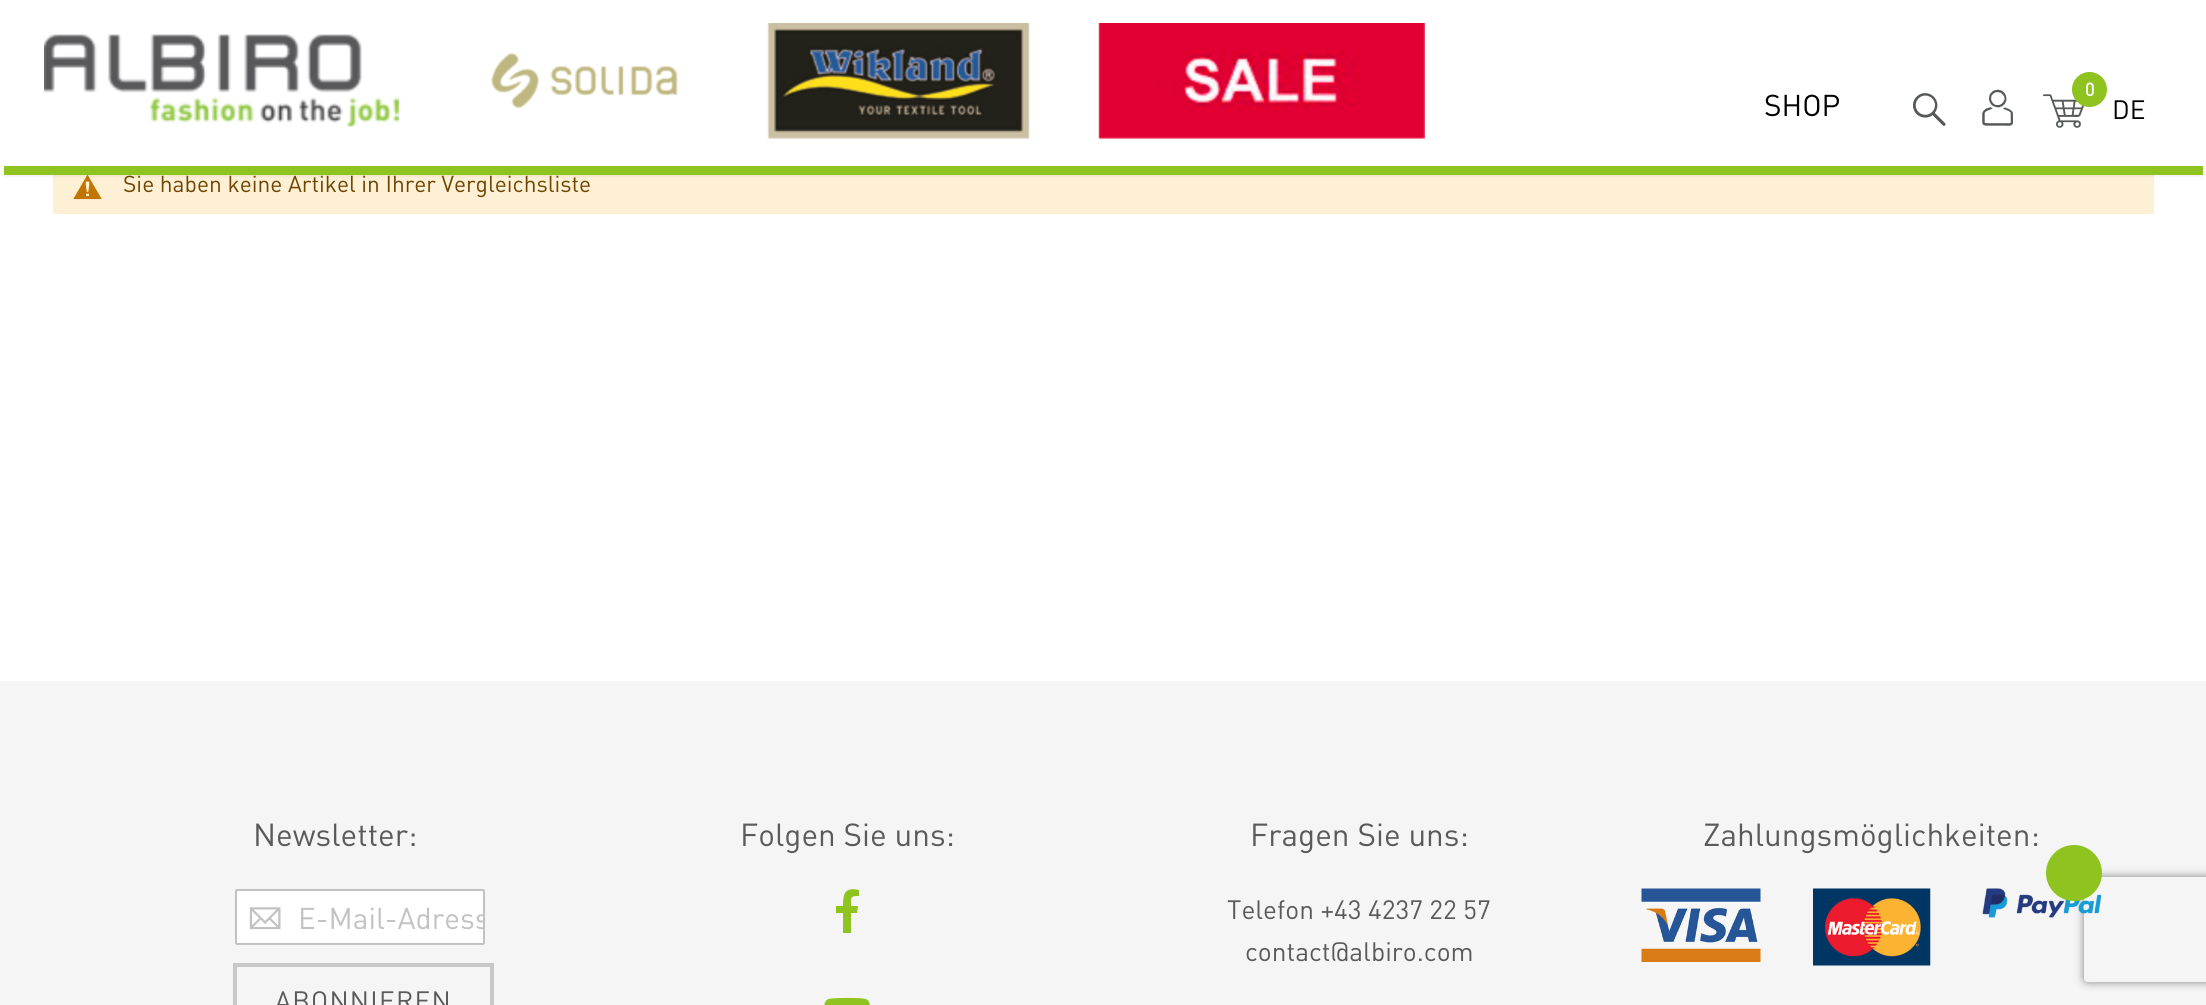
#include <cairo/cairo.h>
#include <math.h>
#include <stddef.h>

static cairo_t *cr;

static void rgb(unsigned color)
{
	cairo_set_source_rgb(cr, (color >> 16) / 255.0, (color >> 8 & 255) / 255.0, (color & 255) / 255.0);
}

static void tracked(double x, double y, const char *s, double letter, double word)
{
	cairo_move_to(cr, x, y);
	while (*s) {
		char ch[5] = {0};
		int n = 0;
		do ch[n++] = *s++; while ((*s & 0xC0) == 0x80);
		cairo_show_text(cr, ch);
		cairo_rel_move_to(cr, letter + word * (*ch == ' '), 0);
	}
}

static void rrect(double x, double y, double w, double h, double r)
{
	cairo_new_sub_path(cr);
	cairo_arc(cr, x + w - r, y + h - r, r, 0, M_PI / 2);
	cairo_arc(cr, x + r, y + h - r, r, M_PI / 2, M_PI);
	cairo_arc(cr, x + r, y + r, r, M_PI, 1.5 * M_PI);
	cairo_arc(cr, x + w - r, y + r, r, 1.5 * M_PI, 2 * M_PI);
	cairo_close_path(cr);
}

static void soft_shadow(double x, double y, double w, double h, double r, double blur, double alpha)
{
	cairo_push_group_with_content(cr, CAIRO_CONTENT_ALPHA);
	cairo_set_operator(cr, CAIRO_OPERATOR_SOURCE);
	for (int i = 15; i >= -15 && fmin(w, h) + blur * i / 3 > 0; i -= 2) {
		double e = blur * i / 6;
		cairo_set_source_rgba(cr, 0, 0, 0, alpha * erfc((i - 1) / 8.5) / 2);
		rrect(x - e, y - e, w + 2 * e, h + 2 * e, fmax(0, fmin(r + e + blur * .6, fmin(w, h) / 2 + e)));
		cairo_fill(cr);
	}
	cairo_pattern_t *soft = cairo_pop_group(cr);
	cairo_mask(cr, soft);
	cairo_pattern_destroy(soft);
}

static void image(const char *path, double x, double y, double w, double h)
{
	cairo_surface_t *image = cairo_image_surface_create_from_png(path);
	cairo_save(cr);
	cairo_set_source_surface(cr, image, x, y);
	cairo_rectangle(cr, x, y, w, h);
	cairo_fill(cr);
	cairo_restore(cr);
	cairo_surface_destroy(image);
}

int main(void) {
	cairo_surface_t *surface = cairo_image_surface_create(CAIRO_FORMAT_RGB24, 2206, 1005);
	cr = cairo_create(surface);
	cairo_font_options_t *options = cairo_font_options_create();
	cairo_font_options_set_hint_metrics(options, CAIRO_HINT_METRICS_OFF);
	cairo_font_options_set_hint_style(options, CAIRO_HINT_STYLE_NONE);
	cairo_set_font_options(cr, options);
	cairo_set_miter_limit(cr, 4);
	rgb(0xffffff);
	cairo_paint(cr);
	rgb(0xfdf0d5);
	cairo_rectangle(cr, 53, 175, 2101, 39);
	cairo_fill(cr);
	image("img/8.png", 73, 175, 29, 25);
	rgb(0x000000);
	soft_shadow(0, 2, 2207, 175, 7, 1, 0.05);
	rgb(0xffffff);
	rrect(0, 0, 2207, 175, 7);
	cairo_fill(cr);
	rgb(0x8fc31f);
	cairo_rectangle(cr, 4, 166, 2199, 9);
	cairo_fill(cr);
	image("img/1.png", 44, 34, 356, 93);
	image("img/2.png", 490, 52, 188, 57);
	image("img/3.png", 767, 23, 263, 116);
	image("img/4.png", 1098, 23, 327, 116);
	image("img/5.png", 1913, 93, 33, 33);
	image("img/6.png", 1982, 89, 31, 37);
	image("img/7.png", 2043, 94, 41, 34);
	cairo_arc(cr, 2089.5, 89.5, 17.5, 0, 2 * M_PI);
	cairo_fill(cr);
	rgb(0xf5f5f5);
	cairo_rectangle(cr, 0, 681, 2206, 324);
	cairo_fill(cr);
	rgb(0xffffff);
	rrect(236, 890, 248, 54, 1);
	cairo_fill_preserve(cr);
	rgb(0xc2c2c2);
	cairo_stroke(cr);
	image("img/9.png", 249, 907, 32, 23);
	cairo_rectangle(cr, 235, 965, 257, 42);
	rgb(0xc8c8c8);
	cairo_set_line_width(cr, 4);
	cairo_stroke(cr);
	cairo_save(cr);
	cairo_set_fill_rule(cr, CAIRO_FILL_RULE_EVEN_ODD);
	cairo_new_path(cr);
	cairo_move_to(cr, 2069, 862);
	cairo_line_to(cr, 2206, 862);
	cairo_line_to(cr, 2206, 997);
	cairo_line_to(cr, 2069, 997);
	cairo_close_path(cr);
	cairo_move_to(cr, 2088, 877);
	cairo_line_to(cr, 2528, 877);
	cairo_curve_to(cr, 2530, 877, 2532, 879, 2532, 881);
	cairo_line_to(cr, 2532, 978);
	cairo_curve_to(cr, 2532, 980, 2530, 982, 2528, 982);
	cairo_line_to(cr, 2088, 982);
	cairo_curve_to(cr, 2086, 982, 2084, 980, 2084, 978);
	cairo_line_to(cr, 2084, 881);
	cairo_curve_to(cr, 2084, 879, 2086, 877, 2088, 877);
	cairo_close_path(cr);
	cairo_clip(cr);
	rgb(0x808080);
	soft_shadow(2084, 877, 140, 105, 4, 4.5, 1);
	cairo_restore(cr);
	rgb(0x8fc31f);
	cairo_new_path(cr);
	cairo_move_to(cr, 843, 933);
	cairo_line_to(cr, 843, 913);
	cairo_line_to(cr, 836, 913);
	cairo_line_to(cr, 836, 906);
	cairo_line_to(cr, 843, 906);
	cairo_curve_to(cr, 843, 893, 845, 887, 859, 890);
	cairo_line_to(cr, 859, 896);
	cairo_curve_to(cr, 850, 896, 851, 897, 851, 906);
	cairo_line_to(cr, 858, 906);
	cairo_line_to(cr, 857, 913);
	cairo_line_to(cr, 851, 913);
	cairo_line_to(cr, 851, 933);
	cairo_close_path(cr);
	cairo_fill(cr);
	image("img/10.png", 824, 997, 46, 8);
	image("img/11.png", 1641, 888, 120, 74);
	image("img/12.png", 1813, 888, 118, 78);
	image("img/13.png", 1982, 888, 120, 30);
	cairo_arc(cr, 2074, 873, 28, 0, 2 * M_PI);
	cairo_fill(cr);
	cairo_select_font_face(cr, "DIN", CAIRO_FONT_SLANT_NORMAL, CAIRO_FONT_WEIGHT_NORMAL);
	cairo_set_font_size(cr, 29.75);
	rgb(0x000000);
	cairo_move_to(cr, 1764, 116);
	cairo_show_text(cr, "SHOP");
	cairo_select_font_face(cr, "DIN", CAIRO_FONT_SLANT_NORMAL, CAIRO_FONT_WEIGHT_BOLD);
	cairo_set_font_size(cr, 18);
	rgb(0xffffff);
	cairo_move_to(cr, 2085, 96);
	cairo_show_text(cr, "0");
	cairo_select_font_face(cr, "DIN", CAIRO_FONT_SLANT_NORMAL, CAIRO_FONT_WEIGHT_NORMAL);
	cairo_set_font_size(cr, 26.25);
	rgb(0x000000);
	cairo_move_to(cr, 2112, 119);
	cairo_show_text(cr, "DE");
	cairo_set_font_size(cr, 22.75);
	rgb(0x6f4400);
	cairo_move_to(cr, 123, 192);
	cairo_show_text(cr, "Sie haben keine Artikel in Ihrer Vergleichsliste");
	cairo_set_font_size(cr, 31.5);
	rgb(0x5a5a5a);
	cairo_move_to(cr, 253, 846);
	cairo_show_text(cr, "Newsletter:");
	cairo_save(cr);
	cairo_rectangle(cr, 298, 900, 185, 36);
	cairo_clip(cr);
	cairo_set_font_size(cr, 29.75);
	rgb(0xc2c2c2);
	cairo_move_to(cr, 298, 929);
	cairo_show_text(cr, "E-Mail-Adress");
	cairo_restore(cr);
	cairo_set_font_size(cr, 26.25);
	tracked(275, 1010, "ABONNIEREN", 1.25, 0);
	cairo_set_font_size(cr, 31.5);
	cairo_move_to(cr, 740, 846);
	cairo_show_text(cr, "Folgen Sie uns:");
	cairo_move_to(cr, 1250, 846);
	cairo_show_text(cr, "Fragen Sie uns:");
	cairo_set_font_size(cr, 26.25);
	cairo_move_to(cr, 1227, 919);
	cairo_show_text(cr, "Telefon +43 4237 22 57");
	cairo_move_to(cr, 1245, 961);
	cairo_show_text(cr, "contact@albiro.com");
	cairo_set_font_size(cr, 31.5);
	cairo_move_to(cr, 1703, 846);
	cairo_show_text(cr, "Zahlungsmöglichkeiten:");
	cairo_surface_write_to_png(surface, "page.png");
	cairo_font_options_destroy(options);
	cairo_destroy(cr);
	cairo_surface_destroy(surface);
	return 0;
}
